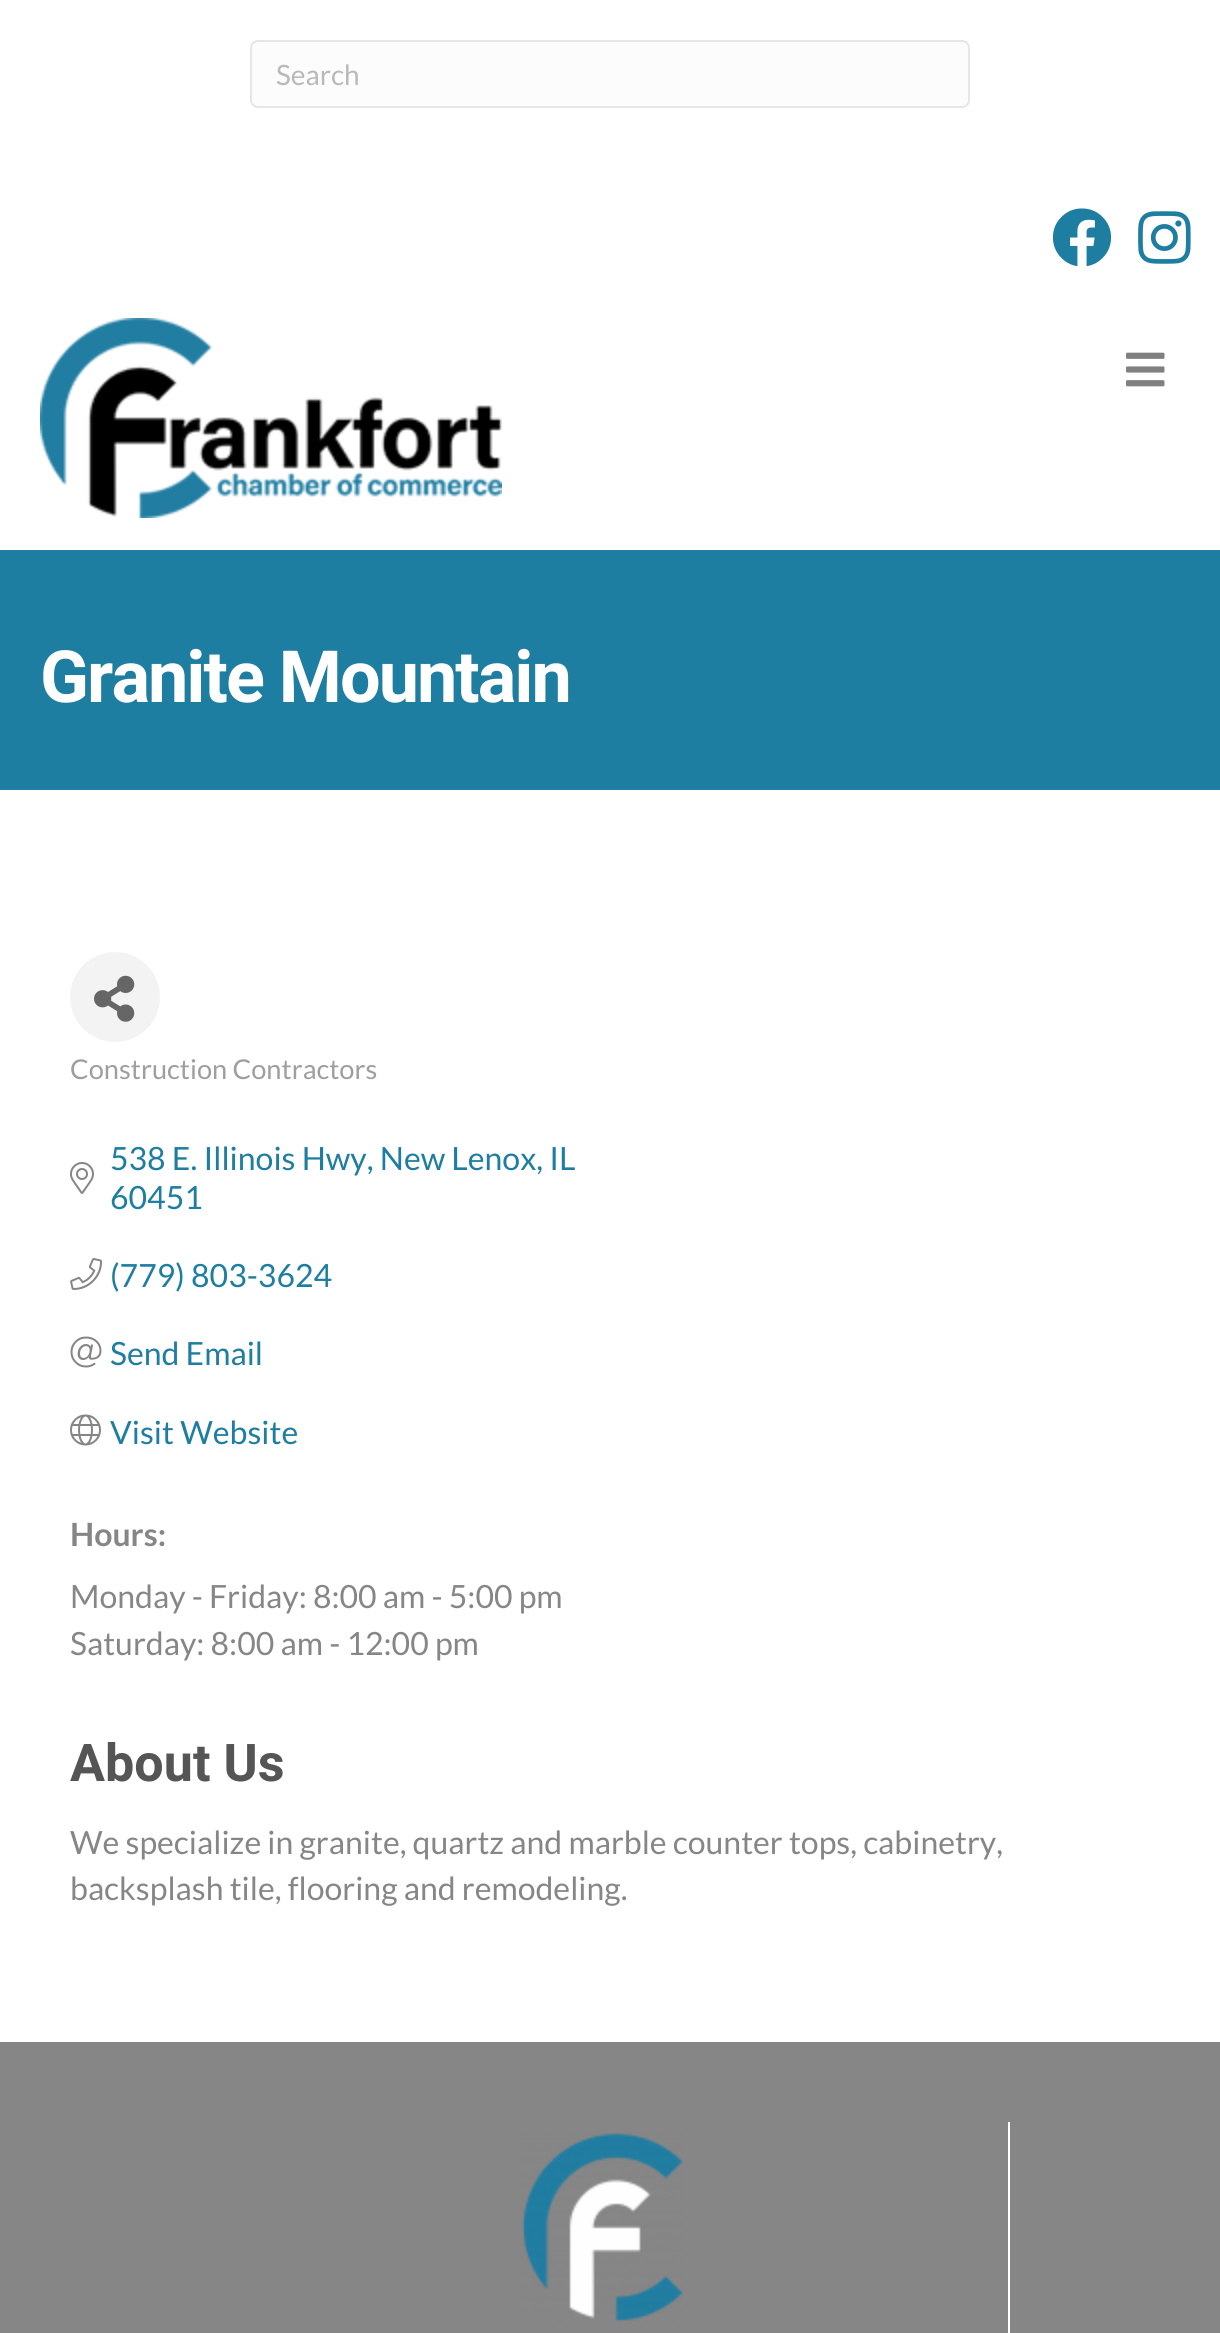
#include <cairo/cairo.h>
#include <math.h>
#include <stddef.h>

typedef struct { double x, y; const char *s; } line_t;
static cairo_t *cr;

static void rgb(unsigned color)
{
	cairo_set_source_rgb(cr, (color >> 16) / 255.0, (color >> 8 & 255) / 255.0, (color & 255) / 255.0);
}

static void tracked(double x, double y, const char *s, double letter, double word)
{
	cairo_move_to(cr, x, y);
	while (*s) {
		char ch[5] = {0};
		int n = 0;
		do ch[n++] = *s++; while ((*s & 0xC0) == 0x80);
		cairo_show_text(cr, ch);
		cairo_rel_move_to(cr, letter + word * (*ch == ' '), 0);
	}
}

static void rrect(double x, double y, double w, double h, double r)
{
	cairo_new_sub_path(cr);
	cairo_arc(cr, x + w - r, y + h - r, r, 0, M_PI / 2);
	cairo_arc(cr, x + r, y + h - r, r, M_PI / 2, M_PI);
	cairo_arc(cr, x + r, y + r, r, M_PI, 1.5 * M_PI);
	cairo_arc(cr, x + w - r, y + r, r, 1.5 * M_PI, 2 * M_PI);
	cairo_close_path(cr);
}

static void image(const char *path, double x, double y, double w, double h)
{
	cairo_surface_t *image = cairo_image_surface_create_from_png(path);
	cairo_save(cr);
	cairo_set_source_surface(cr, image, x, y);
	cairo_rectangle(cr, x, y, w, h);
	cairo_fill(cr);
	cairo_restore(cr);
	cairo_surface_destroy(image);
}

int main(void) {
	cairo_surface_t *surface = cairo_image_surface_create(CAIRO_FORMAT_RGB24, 1220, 2333);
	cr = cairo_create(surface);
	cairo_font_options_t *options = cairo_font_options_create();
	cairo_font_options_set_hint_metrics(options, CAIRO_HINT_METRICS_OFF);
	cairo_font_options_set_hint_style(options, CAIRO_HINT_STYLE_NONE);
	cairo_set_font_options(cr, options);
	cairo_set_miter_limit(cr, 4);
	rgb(0xffffff);
	cairo_paint(cr);
	rgb(0xfcfcfc);
	rrect(251, 41, 718, 66, 7);
	cairo_fill_preserve(cr);
	rgb(0xe6e6e6);
	cairo_stroke(cr);
	image("img/1.png", 1052, 208, 60, 59);
	image("img/2.png", 1138, 211, 53, 53);
	image("img/3.png", 40, 318, 462, 200);
	image("img/4.png", 1126, 352, 39, 35);
	rgb(0x1e7ea2);
	cairo_rectangle(cr, 0, 550, 1220, 240);
	cairo_fill(cr);
	rgb(0xf3f3f3);
	cairo_arc(cr, 115, 997, 45, 0, 2 * M_PI);
	cairo_fill(cr);
	image("img/5.png", 94, 975, 41, 47);
	image("img/6.png", 70, 1162, 24, 32);
	image("img/7.png", 70, 1258, 33, 32);
	image("img/8.png", 70, 1336, 32, 32);
	image("img/9.png", 70, 1414, 31, 32);
	rgb(0x868686);
	cairo_rectangle(cr, 0, 2042, 1220, 291);
	cairo_fill(cr);
	rgb(0xffffff);
	cairo_rectangle(cr, 1008, 2122, 2, 211);
	cairo_fill(cr);
	image("img/10.png", 521, 2133, 162, 189);
	cairo_select_font_face(cr, "Lato", CAIRO_FONT_SLANT_NORMAL, CAIRO_FONT_WEIGHT_NORMAL);
	cairo_set_font_size(cr, 28);
	rgb(0xb9b9b9);
	cairo_move_to(cr, 276, 85);
	cairo_show_text(cr, "Search");
	cairo_select_font_face(cr, "Heebo", CAIRO_FONT_SLANT_NORMAL, CAIRO_FONT_WEIGHT_BOLD);
	cairo_set_font_size(cr, 72);
	rgb(0xffffff);
	tracked(40, 702, "Granite Mountain", -2, 0);
	cairo_select_font_face(cr, "Lato", CAIRO_FONT_SLANT_NORMAL, CAIRO_FONT_WEIGHT_NORMAL);
	cairo_set_font_size(cr, 27.25);
	rgb(0x9e9e9e);
	cairo_move_to(cr, 70, 1079);
	cairo_show_text(cr, "Construction Contractors");
	cairo_set_font_size(cr, 32);
	rgb(0x1e7ea2);
	{
		static const line_t items[] = {
			{110, 1170, "538 E. Illinois Hwy, New Lenox, IL"},
			{110, 1209, "60451"},
			{110, 1287, "(779) 803-3624"},
			{110, 1365, "Send Email"},
			{110, 1444, "Visit Website"},
		};
		for (size_t i = 0; i < sizeof items / sizeof *items; i++) {
			cairo_move_to(cr, items[i].x, items[i].y);
			cairo_show_text(cr, items[i].s);
		}
	}
	cairo_select_font_face(cr, "Lato", CAIRO_FONT_SLANT_NORMAL, CAIRO_FONT_WEIGHT_BOLD);
	rgb(0x868686);
	cairo_move_to(cr, 70, 1546);
	cairo_show_text(cr, "Hours:");
	cairo_select_font_face(cr, "Lato", CAIRO_FONT_SLANT_NORMAL, CAIRO_FONT_WEIGHT_NORMAL);
	cairo_move_to(cr, 70, 1608);
	cairo_show_text(cr, "Monday - Friday: 8:00 am - 5:00 pm");
	cairo_move_to(cr, 70, 1655);
	cairo_show_text(cr, "Saturday: 8:00 am - 12:00 pm");
	cairo_select_font_face(cr, "Heebo", CAIRO_FONT_SLANT_NORMAL, CAIRO_FONT_WEIGHT_BOLD);
	cairo_set_font_size(cr, 52);
	rgb(0x555555);
	cairo_move_to(cr, 70, 1781);
	cairo_show_text(cr, "About Us");
	cairo_select_font_face(cr, "Lato", CAIRO_FONT_SLANT_NORMAL, CAIRO_FONT_WEIGHT_NORMAL);
	cairo_set_font_size(cr, 32);
	rgb(0x868686);
	cairo_move_to(cr, 70, 1854);
	cairo_show_text(cr, "We specialize in granite, quartz and marble counter tops, cabinetry,");
	cairo_move_to(cr, 70, 1900);
	cairo_show_text(cr, "backsplash tile, flooring and remodeling.");
	cairo_surface_write_to_png(surface, "page.png");
	cairo_font_options_destroy(options);
	cairo_destroy(cr);
	cairo_surface_destroy(surface);
	return 0;
}
